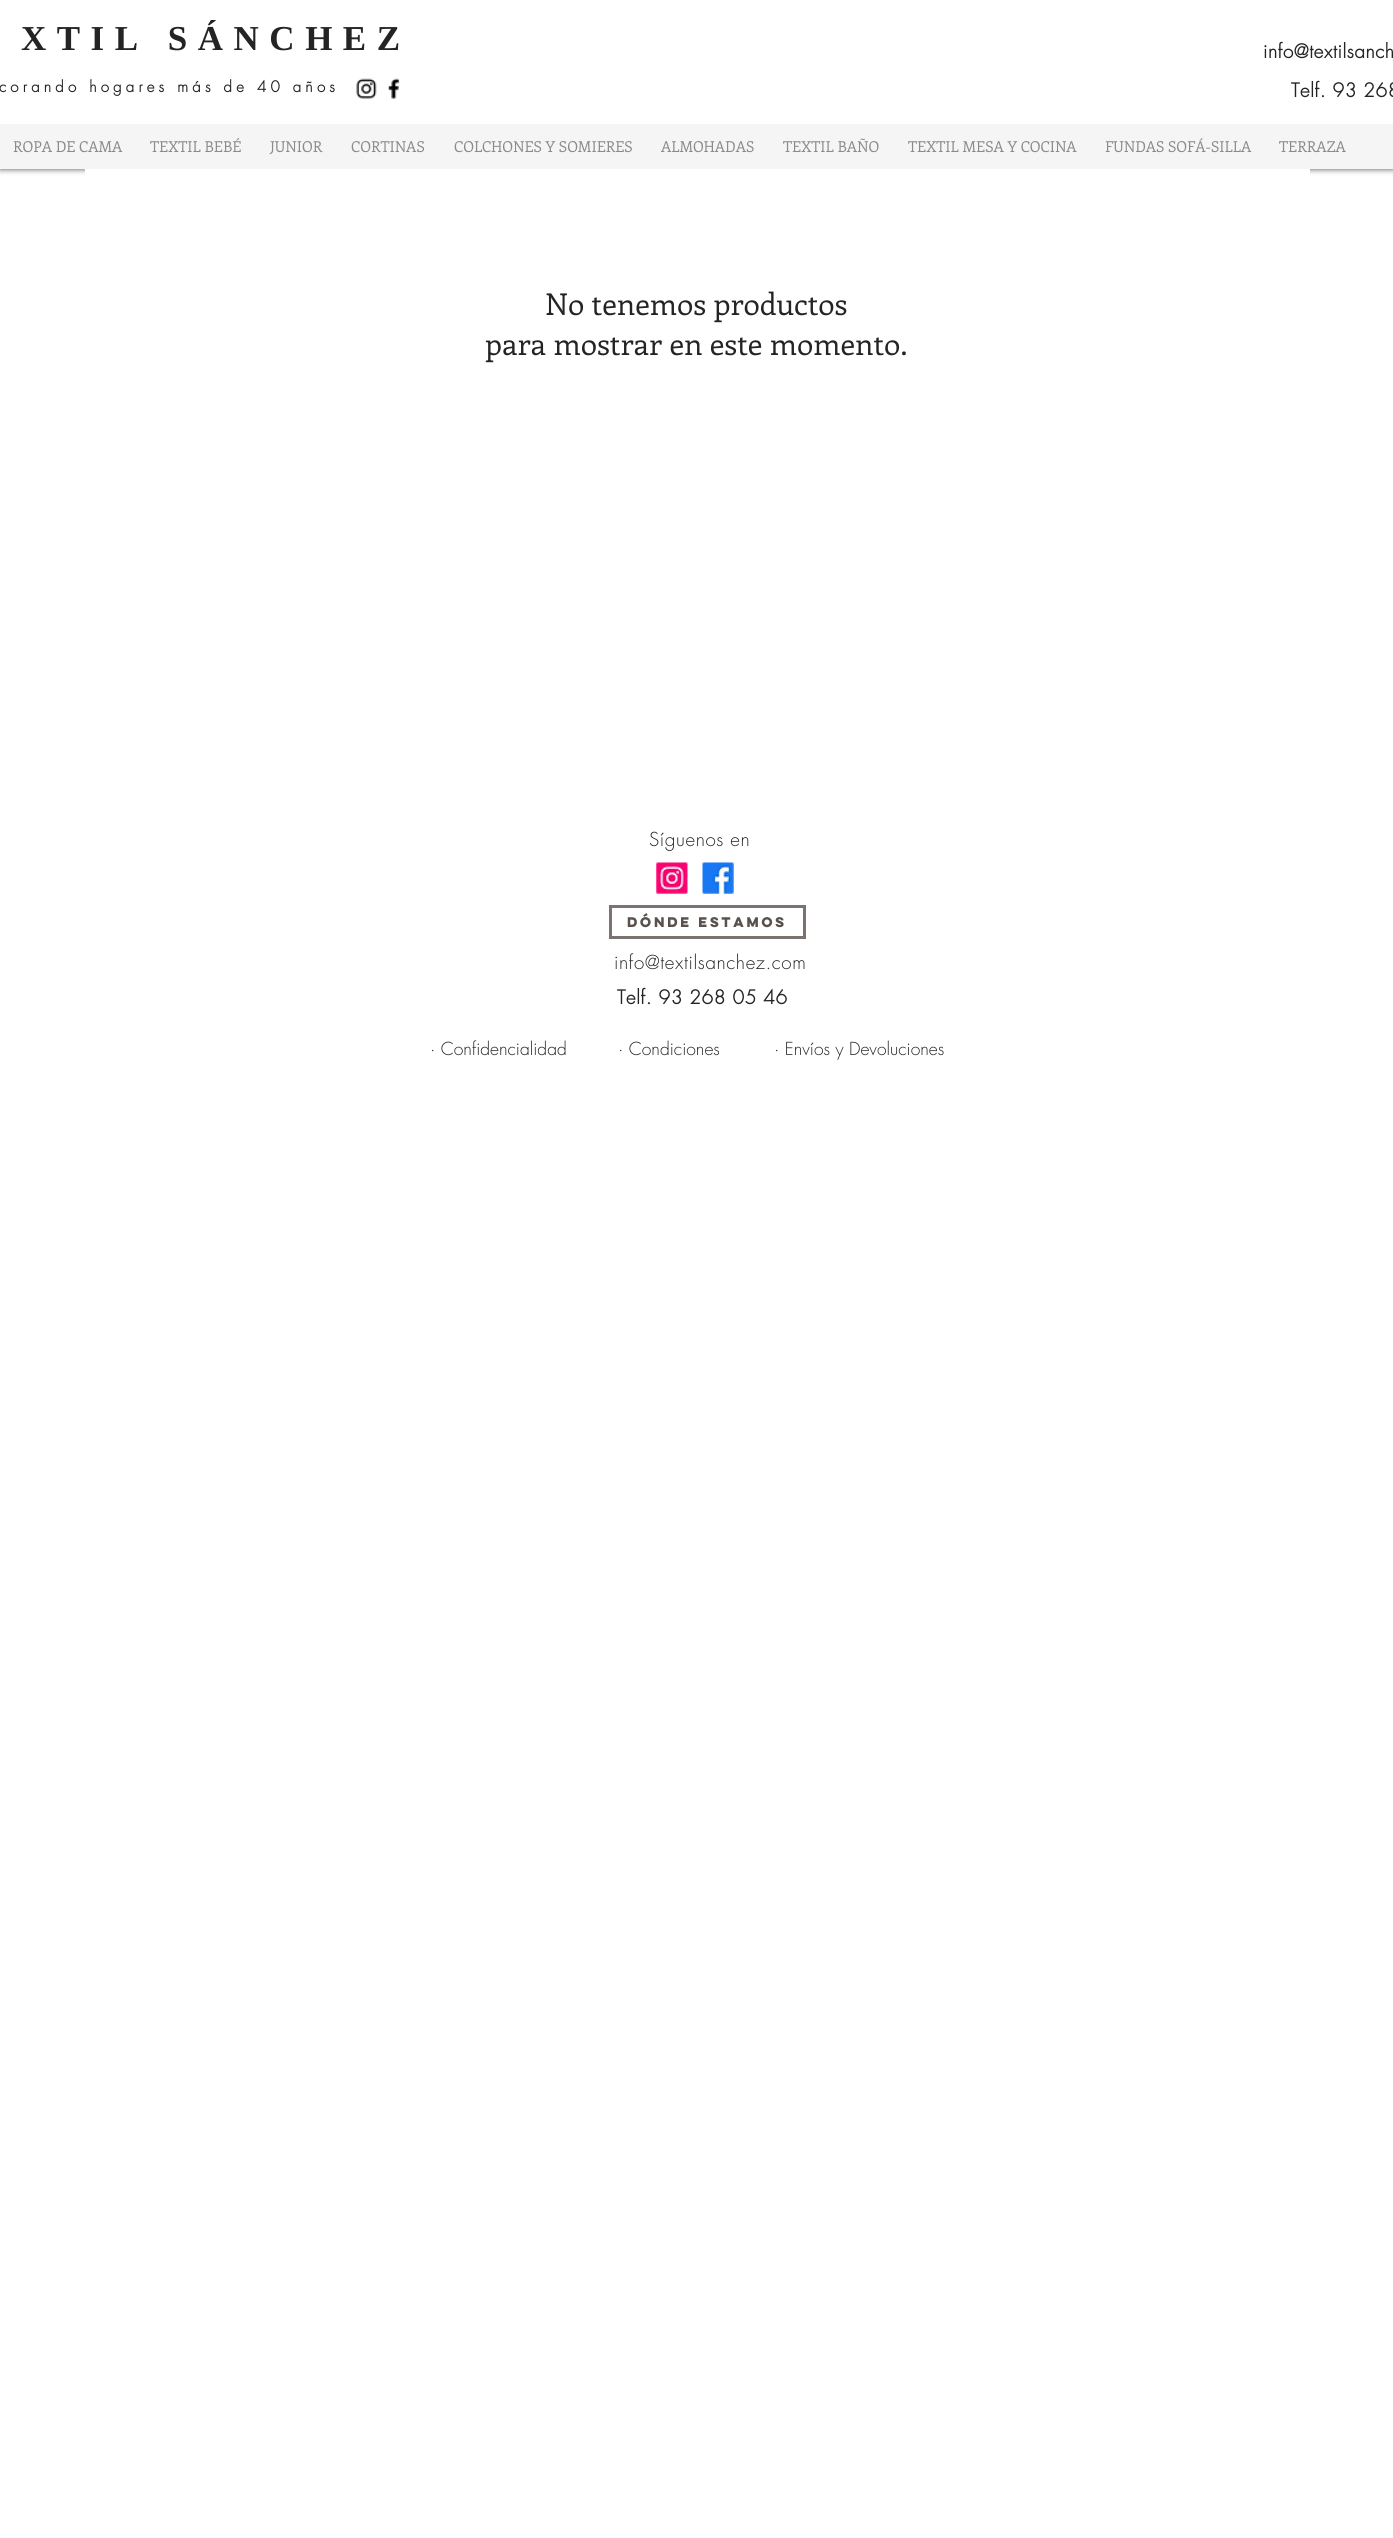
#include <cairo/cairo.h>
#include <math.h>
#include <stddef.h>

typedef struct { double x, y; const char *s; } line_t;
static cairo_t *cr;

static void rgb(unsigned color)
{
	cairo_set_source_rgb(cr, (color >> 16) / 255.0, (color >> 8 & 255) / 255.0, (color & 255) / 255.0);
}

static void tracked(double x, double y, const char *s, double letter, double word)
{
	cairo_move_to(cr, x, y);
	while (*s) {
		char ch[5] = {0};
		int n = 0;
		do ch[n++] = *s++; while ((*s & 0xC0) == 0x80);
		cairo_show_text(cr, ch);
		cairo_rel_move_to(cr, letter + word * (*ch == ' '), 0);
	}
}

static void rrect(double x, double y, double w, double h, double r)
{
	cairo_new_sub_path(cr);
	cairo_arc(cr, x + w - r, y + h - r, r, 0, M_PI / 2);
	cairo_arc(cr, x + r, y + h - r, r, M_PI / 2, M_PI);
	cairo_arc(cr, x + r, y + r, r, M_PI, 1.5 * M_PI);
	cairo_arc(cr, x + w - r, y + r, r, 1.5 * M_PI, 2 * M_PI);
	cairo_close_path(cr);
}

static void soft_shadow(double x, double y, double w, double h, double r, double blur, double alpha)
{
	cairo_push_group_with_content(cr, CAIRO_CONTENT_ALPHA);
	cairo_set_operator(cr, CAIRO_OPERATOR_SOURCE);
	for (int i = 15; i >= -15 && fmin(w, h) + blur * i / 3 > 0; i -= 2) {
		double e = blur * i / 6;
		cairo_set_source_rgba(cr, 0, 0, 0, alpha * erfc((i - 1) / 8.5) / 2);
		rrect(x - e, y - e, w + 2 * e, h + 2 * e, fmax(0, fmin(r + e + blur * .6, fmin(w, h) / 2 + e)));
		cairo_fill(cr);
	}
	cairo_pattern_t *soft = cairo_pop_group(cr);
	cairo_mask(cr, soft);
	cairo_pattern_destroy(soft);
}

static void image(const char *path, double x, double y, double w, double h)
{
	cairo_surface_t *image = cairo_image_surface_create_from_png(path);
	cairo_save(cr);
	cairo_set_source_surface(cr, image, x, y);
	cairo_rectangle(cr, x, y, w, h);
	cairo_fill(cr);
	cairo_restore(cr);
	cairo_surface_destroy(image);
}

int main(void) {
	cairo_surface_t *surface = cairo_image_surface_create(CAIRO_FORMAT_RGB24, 1393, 2538);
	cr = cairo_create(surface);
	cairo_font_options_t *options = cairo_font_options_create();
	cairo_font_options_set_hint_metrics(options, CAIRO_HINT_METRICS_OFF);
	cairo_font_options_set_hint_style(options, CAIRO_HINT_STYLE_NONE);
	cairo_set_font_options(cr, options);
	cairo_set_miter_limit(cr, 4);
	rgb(0xffffff);
	cairo_paint(cr);
	cairo_save(cr);
	cairo_set_fill_rule(cr, CAIRO_FILL_RULE_EVEN_ODD);
	cairo_new_path(cr);
	cairo_move_to(cr, 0, 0);
	cairo_line_to(cr, 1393, 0);
	cairo_line_to(cr, 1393, 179);
	cairo_line_to(cr, 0, 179);
	cairo_close_path(cr);
	cairo_move_to(cr, 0, 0);
	cairo_line_to(cr, 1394, 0);
	cairo_line_to(cr, 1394, 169);
	cairo_line_to(cr, 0, 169);
	cairo_close_path(cr);
	cairo_clip(cr);
	rgb(0x000000);
	soft_shadow(0, 0, 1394, 169, 0, 3, 0.7);
	cairo_restore(cr);
	cairo_set_source_rgba(cr, 1, 1, 1, 0.6);
	cairo_rectangle(cr, 0, 168, 1393, 1);
	cairo_fill(cr);
	image("img/1.png", 356, 78, 21, 21);
	image("img/2.png", 388, 78, 12, 21);
	cairo_set_source_rgba(cr, 0.82, 0.82, 0.82, 0.2);
	cairo_rectangle(cr, 0, 124, 1393, 45);
	cairo_fill(cr);
	rgb(0xffffff);
	cairo_rectangle(cr, 85, 169, 1225, 7);
	cairo_fill(cr);
	image("img/3.png", 656, 862, 32, 32);
	image("img/4.png", 702, 862, 32, 32);
	cairo_rectangle(cr, 610.5, 906.5, 194, 31);
	rgb(0x7b736f);
	cairo_set_line_width(cr, 3);
	cairo_stroke(cr);
	cairo_select_font_face(cr, "Liberation Serif", CAIRO_FONT_SLANT_NORMAL, CAIRO_FONT_WEIGHT_BOLD);
	cairo_set_font_size(cr, 35);
	rgb(0x242424);
	tracked(21, 50, "XTIL SÁNCHEZ", 10.5, 0);
	cairo_select_font_face(cr, "futura", CAIRO_FONT_SLANT_NORMAL, CAIRO_FONT_WEIGHT_BOLD);
	cairo_set_font_size(cr, 18.75);
	tracked(1263, 58, "info@textilsanch", 0.6, 0);
	cairo_set_font_size(cr, 15);
	tracked(-1, 92, "corando hogares más de 40 años", 4.2, 0);
	cairo_set_font_size(cr, 18.75);
	tracked(1291, 97, "Telf. 93 268", 0.6, 0);
	cairo_select_font_face(cr, "Enriqueta", CAIRO_FONT_SLANT_NORMAL, CAIRO_FONT_WEIGHT_NORMAL);
	cairo_set_font_size(cr, 15);
	rgb(0x8b8b8b);
	{
		static const line_t items[] = {
			{13, 152, "ROPA DE CAMA"},
			{150, 152, "TEXTIL BEBÉ"},
			{270, 152, "JUNIOR"},
			{351, 152, "CORTINAS"},
			{454, 152, "COLCHONES Y SOMIERES"},
			{661, 152, "ALMOHADAS"},
			{783, 152, "TEXTIL BAÑO"},
			{908, 152, "TEXTIL MESA Y COCINA"},
			{1105, 152, "FUNDAS SOFÁ-SILLA"},
			{1279, 152, "TERRAZA"},
		};
		for (size_t i = 0; i < sizeof items / sizeof *items; i++) {
			cairo_move_to(cr, items[i].x, items[i].y);
			cairo_show_text(cr, items[i].s);
		}
	}
	cairo_set_font_size(cr, 30);
	rgb(0x242424);
	cairo_move_to(cr, 545, 315);
	cairo_show_text(cr, "No tenemos productos");
	cairo_move_to(cr, 485, 355);
	cairo_show_text(cr, "para mostrar en este momento.");
	cairo_select_font_face(cr, "futura Light", CAIRO_FONT_SLANT_NORMAL, CAIRO_FONT_WEIGHT_NORMAL);
	cairo_set_font_size(cr, 18.75);
	tracked(649, 846, "Síguenos en", 0.6, 0);
	cairo_select_font_face(cr, "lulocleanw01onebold", CAIRO_FONT_SLANT_NORMAL, CAIRO_FONT_WEIGHT_BOLD);
	cairo_set_font_size(cr, 12.5);
	rgb(0x59514d);
	cairo_move_to(cr, 627, 927);
	cairo_show_text(cr, "DÓNDE ESTAMOS");
	cairo_select_font_face(cr, "futura Light", CAIRO_FONT_SLANT_NORMAL, CAIRO_FONT_WEIGHT_NORMAL);
	cairo_set_font_size(cr, 18.75);
	rgb(0x242424);
	tracked(614, 969, "info@textilsanchez.com", 0.6, 0);
	cairo_select_font_face(cr, "futura", CAIRO_FONT_SLANT_NORMAL, CAIRO_FONT_WEIGHT_BOLD);
	tracked(617, 1004, "Telf. 93 268 05 46", 0.6, 0);
	cairo_select_font_face(cr, "futura Light", CAIRO_FONT_SLANT_NORMAL, CAIRO_FONT_WEIGHT_NORMAL);
	cairo_set_font_size(cr, 17.5);
	{
		static const line_t items[] = {
			{430, 1055, "· Confidencialidad"},
			{618, 1055, "· Condiciones"},
			{774, 1055, "· Envíos y Devoluciones"},
		};
		for (size_t i = 0; i < sizeof items / sizeof *items; i++) {
			cairo_move_to(cr, items[i].x, items[i].y);
			cairo_show_text(cr, items[i].s);
		}
	}
	cairo_surface_write_to_png(surface, "page.png");
	cairo_font_options_destroy(options);
	cairo_destroy(cr);
	cairo_surface_destroy(surface);
	return 0;
}
